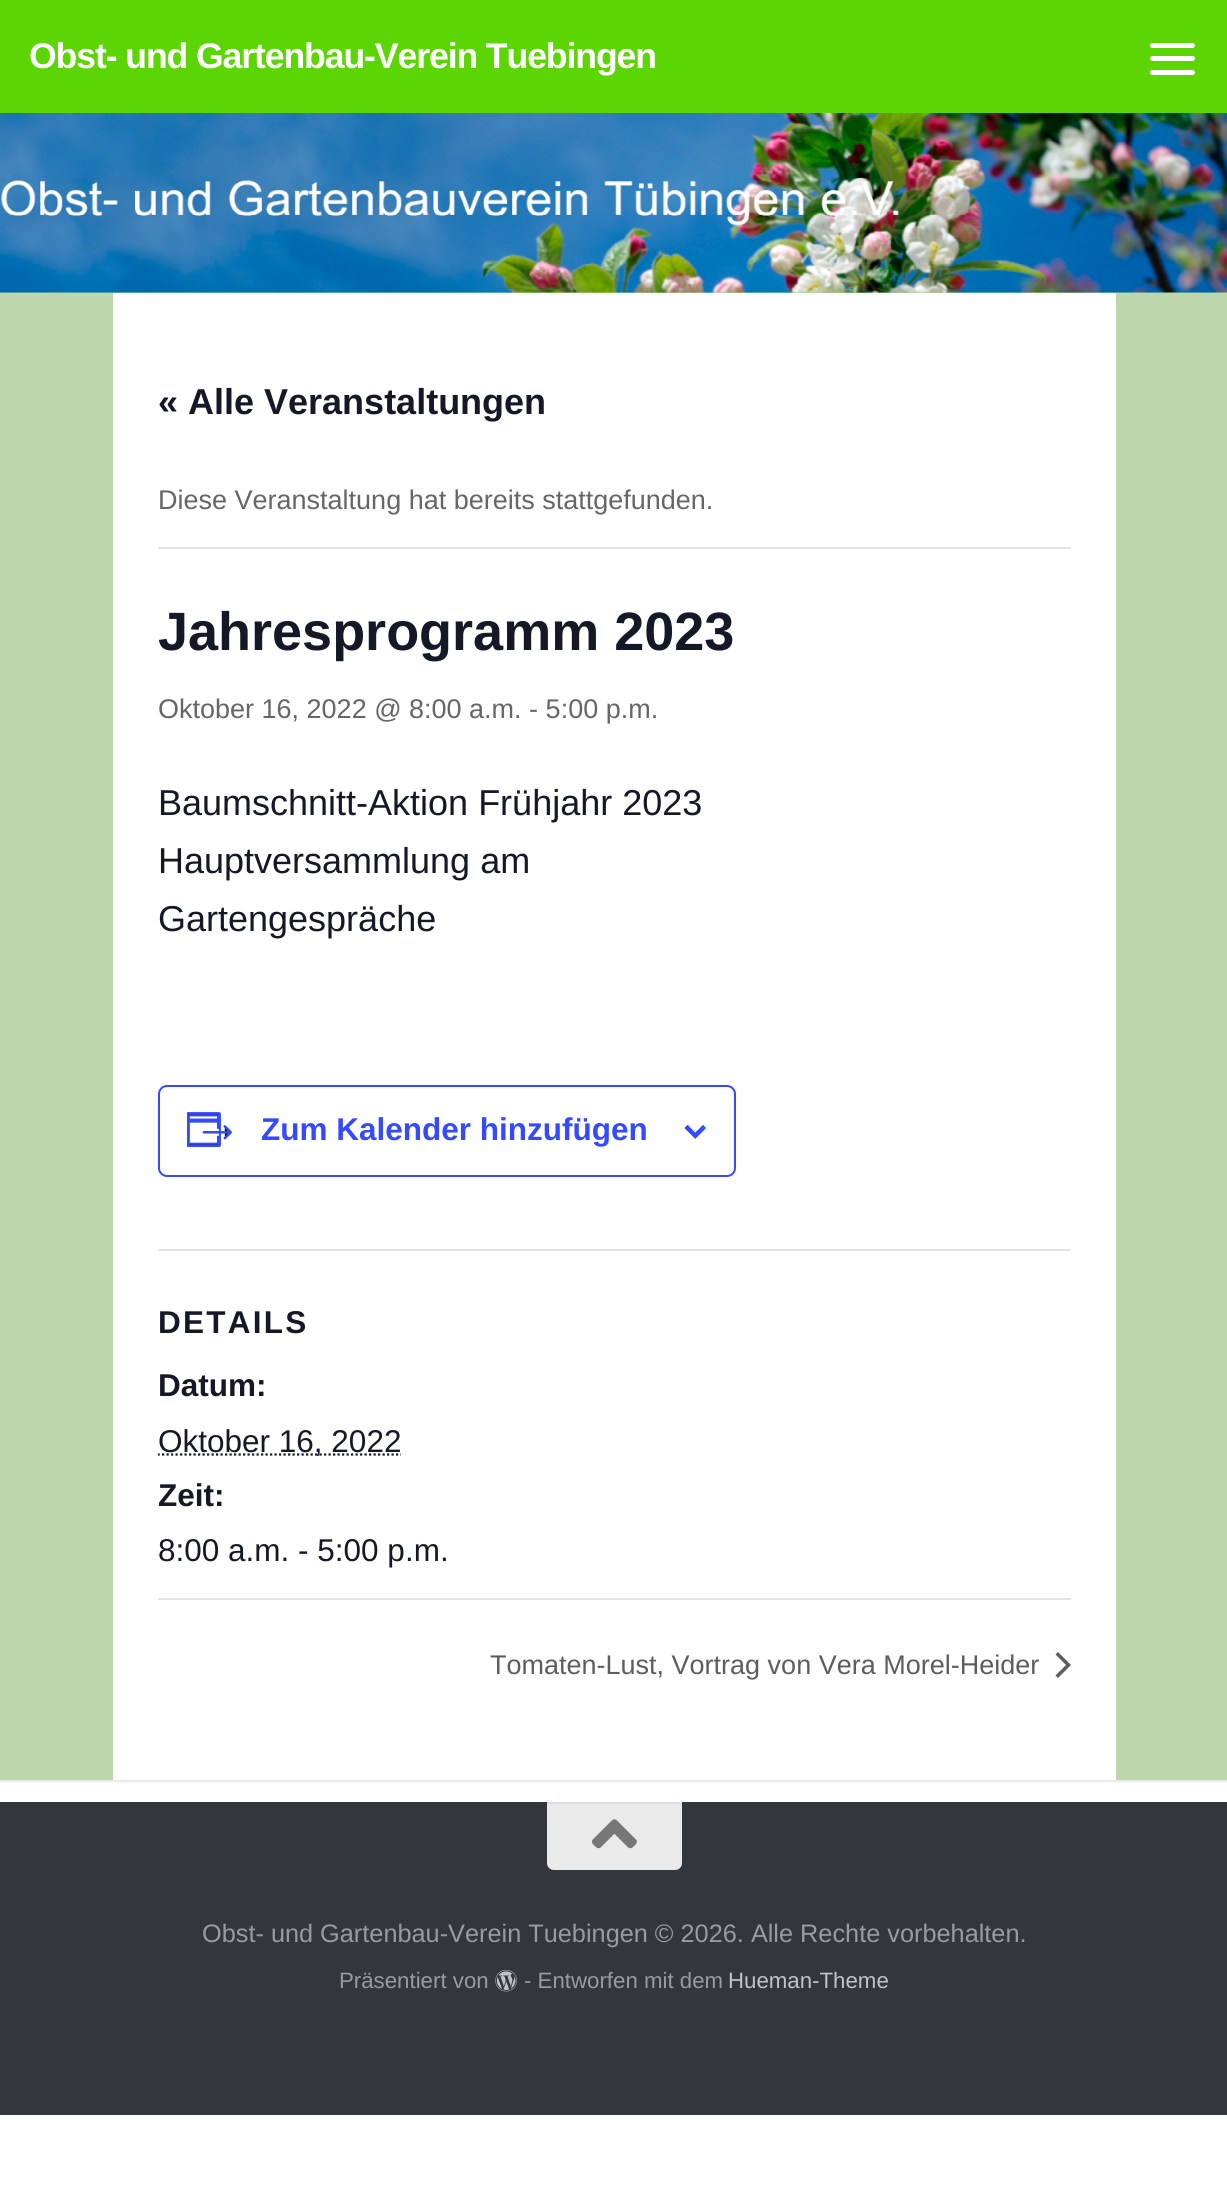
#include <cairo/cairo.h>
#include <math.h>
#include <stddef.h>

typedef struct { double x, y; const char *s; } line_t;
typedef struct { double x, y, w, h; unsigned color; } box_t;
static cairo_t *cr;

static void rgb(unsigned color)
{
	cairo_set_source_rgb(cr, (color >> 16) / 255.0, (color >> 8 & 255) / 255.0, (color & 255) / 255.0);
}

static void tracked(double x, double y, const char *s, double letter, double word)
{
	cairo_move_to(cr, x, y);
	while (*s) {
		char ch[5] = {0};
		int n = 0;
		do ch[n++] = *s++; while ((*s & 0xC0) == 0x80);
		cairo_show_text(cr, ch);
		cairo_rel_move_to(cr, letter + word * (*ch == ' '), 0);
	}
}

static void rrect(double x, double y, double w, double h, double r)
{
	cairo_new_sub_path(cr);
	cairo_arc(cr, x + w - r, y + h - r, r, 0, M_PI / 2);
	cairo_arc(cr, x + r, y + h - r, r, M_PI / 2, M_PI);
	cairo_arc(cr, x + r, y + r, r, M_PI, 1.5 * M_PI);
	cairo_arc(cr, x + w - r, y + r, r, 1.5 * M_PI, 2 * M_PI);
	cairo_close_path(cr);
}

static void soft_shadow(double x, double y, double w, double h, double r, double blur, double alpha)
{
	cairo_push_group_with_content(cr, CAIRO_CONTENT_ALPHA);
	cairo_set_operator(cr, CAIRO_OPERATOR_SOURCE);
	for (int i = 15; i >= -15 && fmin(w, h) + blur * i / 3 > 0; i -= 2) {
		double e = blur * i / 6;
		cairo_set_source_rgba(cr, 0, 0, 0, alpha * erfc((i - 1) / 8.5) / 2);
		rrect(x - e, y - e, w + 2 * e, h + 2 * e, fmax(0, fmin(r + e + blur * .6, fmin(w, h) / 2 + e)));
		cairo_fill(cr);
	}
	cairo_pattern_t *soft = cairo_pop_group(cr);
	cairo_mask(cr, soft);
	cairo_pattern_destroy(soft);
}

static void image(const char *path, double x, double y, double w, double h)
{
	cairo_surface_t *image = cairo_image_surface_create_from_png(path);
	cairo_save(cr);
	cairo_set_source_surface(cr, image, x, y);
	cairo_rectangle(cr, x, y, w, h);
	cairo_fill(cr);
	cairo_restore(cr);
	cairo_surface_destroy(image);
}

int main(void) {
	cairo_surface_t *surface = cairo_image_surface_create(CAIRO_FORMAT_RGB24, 1227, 2212);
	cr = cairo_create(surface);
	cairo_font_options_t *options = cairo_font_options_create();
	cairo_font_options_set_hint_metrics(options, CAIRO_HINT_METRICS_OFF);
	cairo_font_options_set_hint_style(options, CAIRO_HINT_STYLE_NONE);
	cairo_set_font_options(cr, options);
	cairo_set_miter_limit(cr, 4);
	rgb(0xffffff);
	cairo_paint(cr);
	rgb(0x000000);
	soft_shadow(0, 295, 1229, 1487, 0, 1, 0.1);
	rgb(0xa6d693);
	cairo_rectangle(cr, 0, 292, 1227, 1);
	cairo_fill(cr);
	rgb(0x5bd604);
	cairo_rectangle(cr, 0, 0, 1227, 113);
	cairo_fill(cr);
	rgb(0xffffff);
	rrect(1150, 43, 45, 5, 2.5);
	cairo_fill(cr);
	rrect(1150, 56, 45, 5, 2.5);
	cairo_fill(cr);
	rrect(1150, 70, 45, 5, 2.5);
	cairo_fill(cr);
	image("img/1.png", 0, 113, 1227, 180);
	{
		static const box_t items[] = {
			{113, 294, 1003, 1486, 0xffffff},
			{0, 293, 113, 1487, 0xbdd6ab},
			{158, 547, 913, 2, 0xe4e4e4},
		};
		for (size_t i = 0; i < sizeof items / sizeof *items; i++) {
			rgb(items[i].color);
			cairo_rectangle(cr, items[i].x, items[i].y, items[i].w, items[i].h);
			cairo_fill(cr);
		}
	}
	rrect(159, 1086, 576, 90, 8);
	rgb(0x334aff);
	cairo_stroke(cr);
	image("img/2.png", 187, 1112, 45, 35);
	image("img/3.png", 684, 1125, 22, 14);
	rgb(0xe4e4e4);
	cairo_rectangle(cr, 158, 1249, 913, 2);
	cairo_fill(cr);
	cairo_save(cr);
	cairo_rectangle(cr, 158, 774, 913, 824);
	cairo_clip(cr);
	cairo_new_path(cr);
	cairo_move_to(cr, 157.5, 1454.5);
	cairo_line_to(cr, 401, 1454.5);
	rgb(0x141827);
	cairo_set_line_width(cr, 2.2);
	cairo_set_dash(cr, (double[]){2.25, 2.25}, 2, 0);
	cairo_stroke(cr);
	cairo_restore(cr);
	cairo_rectangle(cr, 158, 1598, 913, 2);
	cairo_fill(cr);
	rgb(0x5d5d5d);
	cairo_new_path(cr);
	cairo_move_to(cr, 1055.5, 1654.5);
	cairo_line_to(cr, 1058, 1652);
	cairo_line_to(cr, 1071, 1665);
	cairo_line_to(cr, 1058, 1678);
	cairo_line_to(cr, 1055.5, 1675.5);
	cairo_line_to(cr, 1066, 1665);
	cairo_close_path(cr);
	cairo_fill(cr);
	rgb(0xbdd6ab);
	cairo_rectangle(cr, 1116, 293, 111, 1487);
	cairo_fill(cr);
	rgb(0x33363b);
	cairo_rectangle(cr, 0, 1802, 1227, 313);
	cairo_fill(cr);
	rgb(0xeaeaea);
	cairo_new_path(cr);
	cairo_move_to(cr, 547, 1802);
	cairo_line_to(cr, 682, 1802);
	cairo_line_to(cr, 682, 1863);
	cairo_curve_to(cr, 682, 1867, 679, 1870, 675, 1870);
	cairo_line_to(cr, 554, 1870);
	cairo_curve_to(cr, 550, 1870, 547, 1867, 547, 1863);
	cairo_close_path(cr);
	cairo_fill(cr);
	rgb(0xdedede);
	cairo_rectangle(cr, 547, 1802, 135, 2);
	cairo_fill(cr);
	image("img/4.png", 591, 1819, 46, 30);
	image("img/5.png", 495, 1969, 22, 23);
	cairo_select_font_face(cr, "Liberation Sans", CAIRO_FONT_SLANT_NORMAL, CAIRO_FONT_WEIGHT_BOLD);
	cairo_set_font_size(cr, 35.6);
	rgb(0xffffff);
	tracked(29, 68, "Obst- und Gartenbau-Verein Tuebingen", -1.1, 0);
	cairo_set_font_size(cr, 36);
	rgb(0x141827);
	cairo_move_to(cr, 158, 414);
	cairo_show_text(cr, "« Alle Veranstaltungen");
	cairo_select_font_face(cr, "Liberation Sans", CAIRO_FONT_SLANT_NORMAL, CAIRO_FONT_WEIGHT_NORMAL);
	cairo_set_font_size(cr, 27);
	rgb(0x666666);
	cairo_move_to(cr, 158, 509);
	cairo_show_text(cr, "Diese Veranstaltung hat bereits stattgefunden.");
	cairo_select_font_face(cr, "Liberation Sans", CAIRO_FONT_SLANT_NORMAL, CAIRO_FONT_WEIGHT_BOLD);
	cairo_set_font_size(cr, 54);
	rgb(0x141827);
	cairo_move_to(cr, 158, 650);
	cairo_show_text(cr, "Jahresprogramm 2023");
	cairo_select_font_face(cr, "Liberation Sans", CAIRO_FONT_SLANT_NORMAL, CAIRO_FONT_WEIGHT_NORMAL);
	cairo_set_font_size(cr, 27);
	rgb(0x666666);
	cairo_move_to(cr, 158, 718);
	cairo_show_text(cr, "Oktober 16, 2022 @ 8:00 a.m. - 5:00 p.m.");
	cairo_set_font_size(cr, 36);
	rgb(0x141827);
	{
		static const line_t items[] = {
			{158, 815, "Baumschnitt-Aktion Frühjahr 2023"},
			{158, 873, "Hauptversammlung am"},
			{158, 931, "Gartengespräche"},
		};
		for (size_t i = 0; i < sizeof items / sizeof *items; i++) {
			cairo_move_to(cr, items[i].x, items[i].y);
			cairo_show_text(cr, items[i].s);
		}
	}
	cairo_select_font_face(cr, "Liberation Sans", CAIRO_FONT_SLANT_NORMAL, CAIRO_FONT_WEIGHT_BOLD);
	cairo_set_font_size(cr, 31.5);
	rgb(0x334aff);
	cairo_move_to(cr, 261, 1140);
	cairo_show_text(cr, "Zum Kalender hinzufügen");
	rgb(0x141827);
	tracked(158, 1333, "DETAILS", 2.25, 0);
	cairo_move_to(cr, 158, 1396);
	cairo_show_text(cr, "Datum:");
	cairo_select_font_face(cr, "Liberation Sans", CAIRO_FONT_SLANT_NORMAL, CAIRO_FONT_WEIGHT_NORMAL);
	cairo_move_to(cr, 158, 1452);
	cairo_show_text(cr, "Oktober 16, 2022");
	cairo_select_font_face(cr, "Liberation Sans", CAIRO_FONT_SLANT_NORMAL, CAIRO_FONT_WEIGHT_BOLD);
	cairo_move_to(cr, 158, 1506);
	cairo_show_text(cr, "Zeit:");
	cairo_select_font_face(cr, "Liberation Sans", CAIRO_FONT_SLANT_NORMAL, CAIRO_FONT_WEIGHT_NORMAL);
	cairo_move_to(cr, 158, 1561);
	cairo_show_text(cr, "8:00 a.m. - 5:00 p.m.");
	cairo_set_font_size(cr, 27);
	rgb(0x5d5d5d);
	cairo_move_to(cr, 490, 1674);
	cairo_show_text(cr, "Tomaten-Lust, Vortrag von Vera Morel-Heider");
	cairo_set_font_size(cr, 25.3);
	rgb(0x999b9d);
	cairo_move_to(cr, 202, 1942);
	cairo_show_text(cr, "Obst- und Gartenbau-Verein Tuebingen © 2026. Alle Rechte vorbehalten.");
	cairo_set_font_size(cr, 22.25);
	cairo_move_to(cr, 339, 1988);
	cairo_show_text(cr, "Präsentiert von");
	cairo_move_to(cr, 524, 1988);
	cairo_show_text(cr, "- Entworfen mit dem");
	rgb(0xc2c3c4);
	cairo_move_to(cr, 728, 1988);
	cairo_show_text(cr, "Hueman-Theme");
	cairo_surface_write_to_png(surface, "page.png");
	cairo_font_options_destroy(options);
	cairo_destroy(cr);
	cairo_surface_destroy(surface);
	return 0;
}
